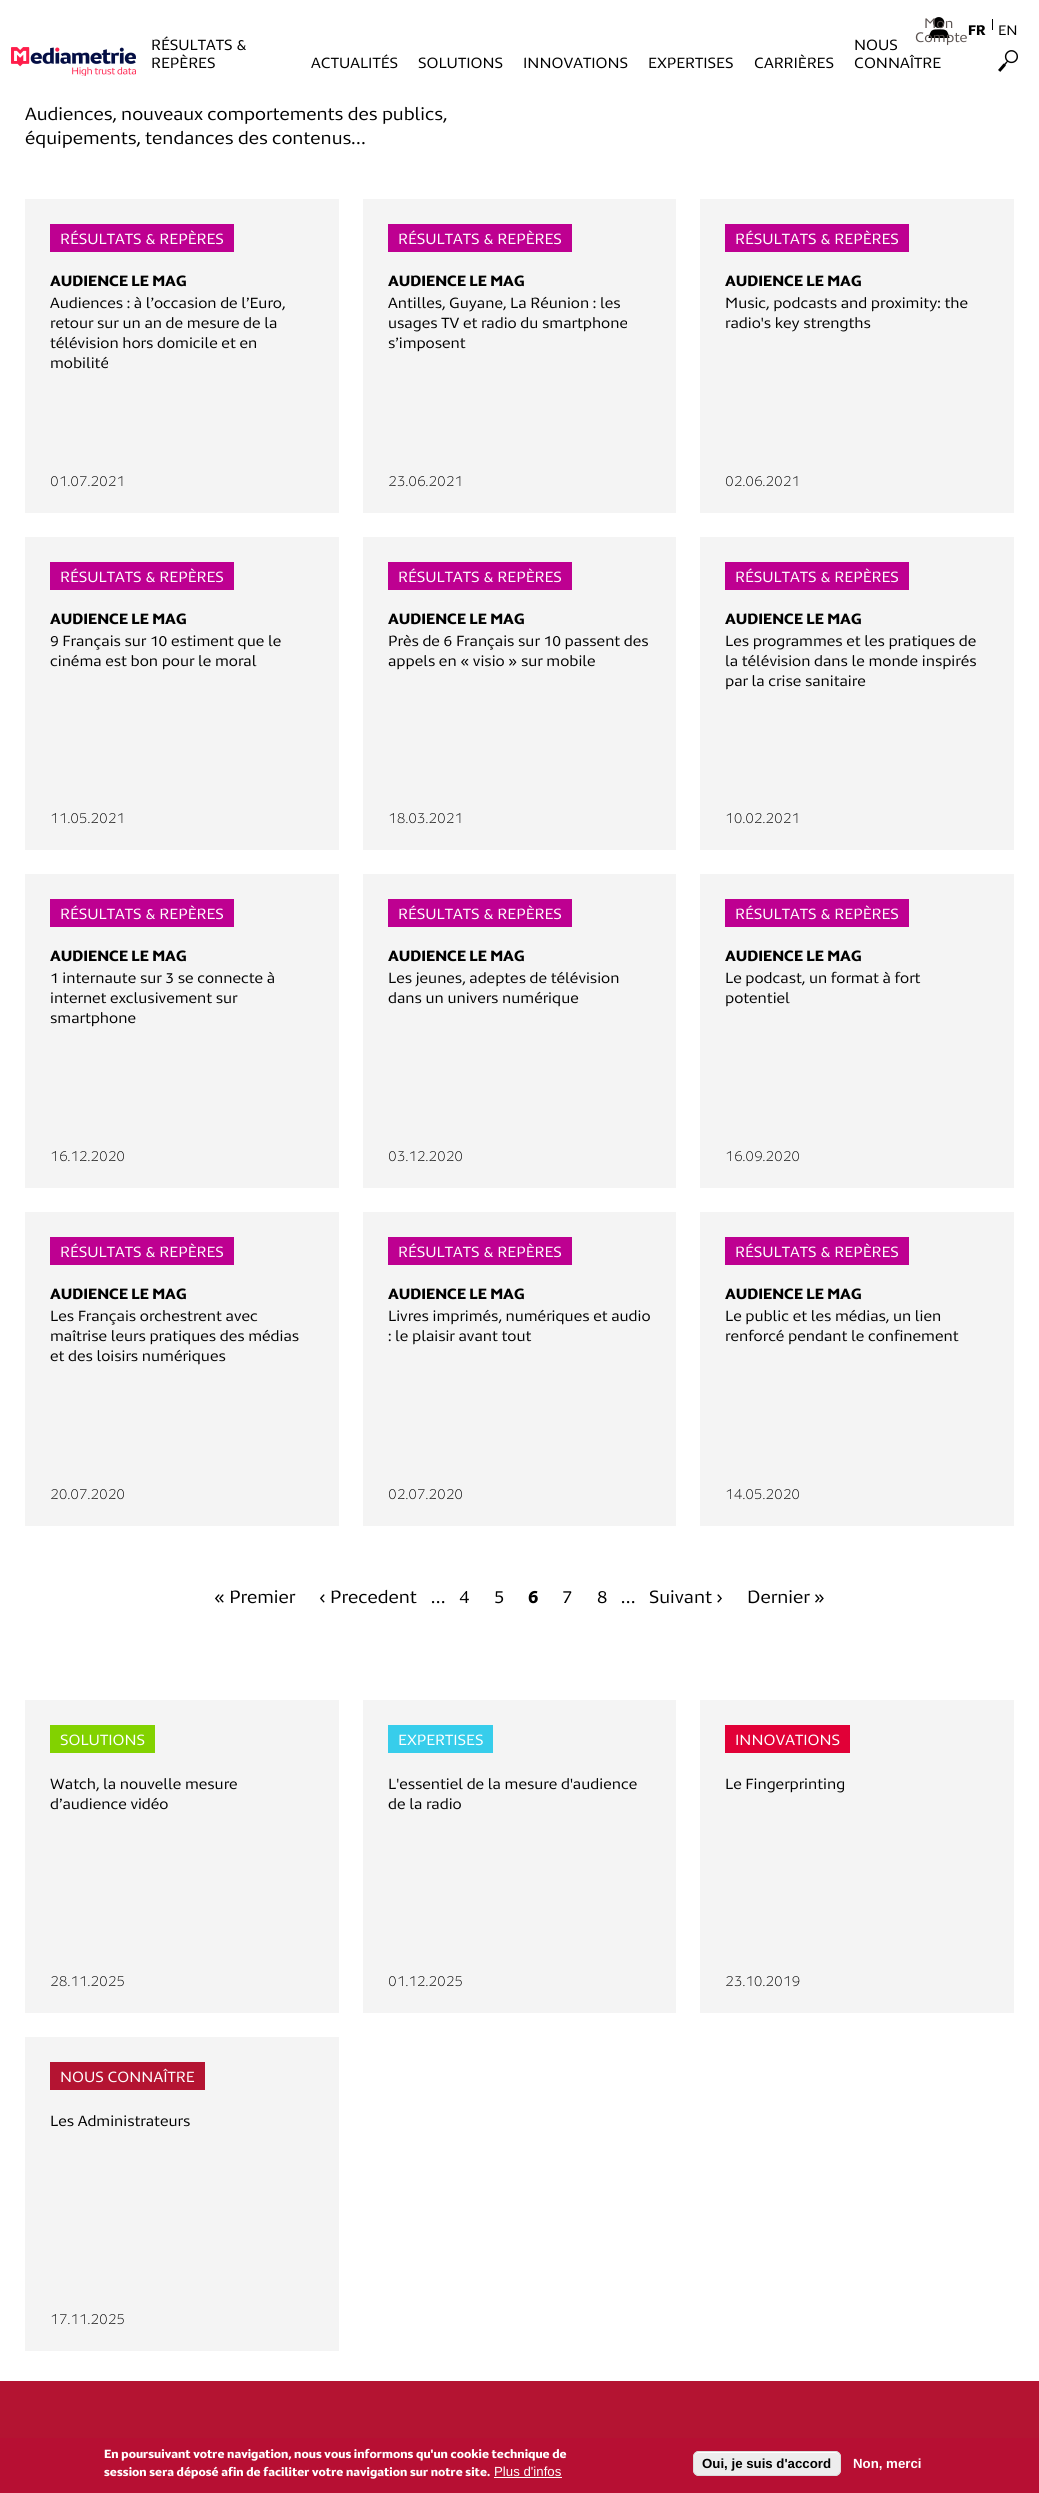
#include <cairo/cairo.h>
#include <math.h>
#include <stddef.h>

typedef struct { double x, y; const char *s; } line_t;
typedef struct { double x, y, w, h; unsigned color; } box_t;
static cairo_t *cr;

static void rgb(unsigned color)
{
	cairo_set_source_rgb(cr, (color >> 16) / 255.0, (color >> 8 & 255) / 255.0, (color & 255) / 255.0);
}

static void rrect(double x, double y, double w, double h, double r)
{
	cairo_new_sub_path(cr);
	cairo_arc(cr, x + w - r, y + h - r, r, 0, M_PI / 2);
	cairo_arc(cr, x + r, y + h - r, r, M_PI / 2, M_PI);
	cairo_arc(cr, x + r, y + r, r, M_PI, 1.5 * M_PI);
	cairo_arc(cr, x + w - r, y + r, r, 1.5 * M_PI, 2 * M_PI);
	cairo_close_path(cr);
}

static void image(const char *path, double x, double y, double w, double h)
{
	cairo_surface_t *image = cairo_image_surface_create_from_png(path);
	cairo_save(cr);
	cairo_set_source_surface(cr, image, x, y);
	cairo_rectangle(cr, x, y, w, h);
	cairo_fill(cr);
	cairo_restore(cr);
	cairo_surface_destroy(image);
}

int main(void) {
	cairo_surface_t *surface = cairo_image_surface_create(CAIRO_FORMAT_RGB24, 1039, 2493);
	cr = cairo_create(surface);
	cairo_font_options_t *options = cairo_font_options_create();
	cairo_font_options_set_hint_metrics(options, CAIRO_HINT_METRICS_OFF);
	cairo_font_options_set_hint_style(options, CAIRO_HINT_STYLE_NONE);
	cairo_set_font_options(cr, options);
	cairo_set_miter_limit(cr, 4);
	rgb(0xffffff);
	cairo_paint(cr);
	image("img/1.png", 928, 17, 22, 21);
	rgb(0x000000);
	cairo_rectangle(cr, 992, 19, 1, 11);
	cairo_fill(cr);
	image("img/2.png", 11, 47, 125, 29);
	image("img/3.png", 998, 50, 20, 22);
	{
		static const box_t items[] = {
			{25, 199, 314, 314, 0xf4f4f4},
			{50, 224, 184, 28, 0xbe0091},
			{363, 199, 313, 314, 0xf4f4f4},
			{388, 224, 184, 28, 0xbe0091},
			{700, 199, 314, 314, 0xf4f4f4},
			{725, 224, 184, 28, 0xbe0091},
			{25, 537, 314, 313, 0xf4f4f4},
			{50, 562, 184, 28, 0xbe0091},
			{363, 537, 313, 313, 0xf4f4f4},
			{388, 562, 184, 28, 0xbe0091},
			{700, 537, 314, 313, 0xf4f4f4},
			{725, 562, 184, 28, 0xbe0091},
			{25, 874, 314, 314, 0xf4f4f4},
			{50, 899, 184, 28, 0xbe0091},
			{363, 874, 313, 314, 0xf4f4f4},
			{388, 899, 184, 28, 0xbe0091},
			{700, 874, 314, 314, 0xf4f4f4},
			{725, 899, 184, 28, 0xbe0091},
			{25, 1212, 314, 314, 0xf4f4f4},
			{50, 1237, 184, 28, 0xbe0091},
			{363, 1212, 313, 314, 0xf4f4f4},
			{388, 1237, 184, 28, 0xbe0091},
			{700, 1212, 314, 314, 0xf4f4f4},
			{725, 1237, 184, 28, 0xbe0091},
			{25, 1700, 314, 313, 0xf4f4f4},
			{50, 1725, 105, 28, 0x82d200},
			{363, 1700, 313, 313, 0xf4f4f4},
			{388, 1725, 105, 28, 0x37cdeb},
			{700, 1700, 314, 313, 0xf4f4f4},
			{725, 1725, 125, 28, 0xe10037},
			{25, 2037, 314, 314, 0xf4f4f4},
			{50, 2062, 155, 28, 0xb41432},
			{0, 2381, 1039, 57, 0xb41432},
			{0, 2438, 1039, 55, 0xb70f33},
			{494, 2477, 68, 1, 0xffffff},
		};
		for (size_t i = 0; i < sizeof items / sizeof *items; i++) {
			rgb(items[i].color);
			cairo_rectangle(cr, items[i].x, items[i].y, items[i].w, items[i].h);
			cairo_fill(cr);
		}
	}
	rgb(0xededed);
	rrect(693, 2451, 148, 25, 6);
	cairo_fill(cr);
	rgb(0xffffff);
	cairo_new_path(cr);
	cairo_move_to(cr, 699, 2453);
	cairo_line_to(cr, 835, 2453);
	cairo_curve_to(cr, 838, 2453, 840, 2455, 840, 2458);
	cairo_line_to(cr, 840, 2457);
	cairo_curve_to(cr, 840, 2454, 838, 2452, 835, 2452);
	cairo_line_to(cr, 699, 2452);
	cairo_curve_to(cr, 696, 2452, 694, 2454, 694, 2457);
	cairo_line_to(cr, 694, 2458);
	cairo_curve_to(cr, 694, 2455, 696, 2453, 699, 2453);
	cairo_close_path(cr);
	cairo_fill(cr);
	rrect(693.5, 2451.5, 147, 24, 5.5);
	rgb(0xdcdcdc);
	cairo_set_line_width(cr, 1);
	cairo_stroke(cr);
	cairo_select_font_face(cr, "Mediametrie", CAIRO_FONT_SLANT_NORMAL, CAIRO_FONT_WEIGHT_NORMAL);
	cairo_set_font_size(cr, 14);
	rgb(0x5a5250);
	cairo_move_to(cr, 924, 28);
	cairo_show_text(cr, "Mon");
	cairo_move_to(cr, 915, 42);
	cairo_show_text(cr, "Compte");
	cairo_select_font_face(cr, "Mediametrie", CAIRO_FONT_SLANT_NORMAL, CAIRO_FONT_WEIGHT_BOLD);
	rgb(0x000000);
	cairo_move_to(cr, 968, 35);
	cairo_show_text(cr, "FR");
	cairo_select_font_face(cr, "Mediametrie", CAIRO_FONT_SLANT_NORMAL, CAIRO_FONT_WEIGHT_NORMAL);
	cairo_move_to(cr, 998, 35);
	cairo_show_text(cr, "EN");
	cairo_set_font_size(cr, 15);
	{
		static const line_t items[] = {
			{151, 50, "RÉSULTATS &"},
			{151, 68, "REPÈRES"},
			{311, 68, "ACTUALITÉS"},
			{418, 68, "SOLUTIONS"},
			{523, 68, "INNOVATIONS"},
			{648, 68, "EXPERTISES"},
			{754, 68, "CARRIÈRES"},
			{854, 50, "NOUS"},
			{854, 68, "CONNAÎTRE"},
		};
		for (size_t i = 0; i < sizeof items / sizeof *items; i++) {
			cairo_move_to(cr, items[i].x, items[i].y);
			cairo_show_text(cr, items[i].s);
		}
	}
	cairo_set_font_size(cr, 18);
	cairo_move_to(cr, 25, 120);
	cairo_show_text(cr, "Audiences, nouveaux comportements des publics,");
	cairo_move_to(cr, 25, 144);
	cairo_show_text(cr, "équipements, tendances des contenus…");
	cairo_set_font_size(cr, 15);
	rgb(0xffffff);
	cairo_move_to(cr, 60, 244);
	cairo_show_text(cr, "RÉSULTATS & REPÈRES");
	cairo_select_font_face(cr, "Mediametrie", CAIRO_FONT_SLANT_NORMAL, CAIRO_FONT_WEIGHT_BOLD);
	rgb(0x000000);
	cairo_move_to(cr, 50, 286);
	cairo_show_text(cr, "AUDIENCE LE MAG");
	cairo_select_font_face(cr, "Mediametrie", CAIRO_FONT_SLANT_NORMAL, CAIRO_FONT_WEIGHT_NORMAL);
	{
		static const line_t items[] = {
			{50, 308, "Audiences : à l’occasion de l’Euro,"},
			{50, 328, "retour sur un an de mesure de la"},
			{50, 348, "télévision hors domicile et en"},
			{50, 368, "mobilité"},
		};
		for (size_t i = 0; i < sizeof items / sizeof *items; i++) {
			cairo_move_to(cr, items[i].x, items[i].y);
			cairo_show_text(cr, items[i].s);
		}
	}
	cairo_select_font_face(cr, "Mediametrie Light", CAIRO_FONT_SLANT_NORMAL, CAIRO_FONT_WEIGHT_NORMAL);
	cairo_move_to(cr, 50, 486);
	cairo_show_text(cr, "01.07.2021");
	cairo_select_font_face(cr, "Mediametrie", CAIRO_FONT_SLANT_NORMAL, CAIRO_FONT_WEIGHT_NORMAL);
	rgb(0xffffff);
	cairo_move_to(cr, 398, 244);
	cairo_show_text(cr, "RÉSULTATS & REPÈRES");
	cairo_select_font_face(cr, "Mediametrie", CAIRO_FONT_SLANT_NORMAL, CAIRO_FONT_WEIGHT_BOLD);
	rgb(0x000000);
	cairo_move_to(cr, 388, 286);
	cairo_show_text(cr, "AUDIENCE LE MAG");
	cairo_select_font_face(cr, "Mediametrie", CAIRO_FONT_SLANT_NORMAL, CAIRO_FONT_WEIGHT_NORMAL);
	{
		static const line_t items[] = {
			{388, 308, "Antilles, Guyane, La Réunion : les"},
			{388, 328, "usages TV et radio du smartphone"},
			{388, 348, "s’imposent"},
		};
		for (size_t i = 0; i < sizeof items / sizeof *items; i++) {
			cairo_move_to(cr, items[i].x, items[i].y);
			cairo_show_text(cr, items[i].s);
		}
	}
	cairo_select_font_face(cr, "Mediametrie Light", CAIRO_FONT_SLANT_NORMAL, CAIRO_FONT_WEIGHT_NORMAL);
	cairo_move_to(cr, 388, 486);
	cairo_show_text(cr, "23.06.2021");
	cairo_select_font_face(cr, "Mediametrie", CAIRO_FONT_SLANT_NORMAL, CAIRO_FONT_WEIGHT_NORMAL);
	rgb(0xffffff);
	cairo_move_to(cr, 735, 244);
	cairo_show_text(cr, "RÉSULTATS & REPÈRES");
	cairo_select_font_face(cr, "Mediametrie", CAIRO_FONT_SLANT_NORMAL, CAIRO_FONT_WEIGHT_BOLD);
	rgb(0x000000);
	cairo_move_to(cr, 725, 286);
	cairo_show_text(cr, "AUDIENCE LE MAG");
	cairo_select_font_face(cr, "Mediametrie", CAIRO_FONT_SLANT_NORMAL, CAIRO_FONT_WEIGHT_NORMAL);
	cairo_move_to(cr, 725, 308);
	cairo_show_text(cr, "Music, podcasts and proximity: the");
	cairo_move_to(cr, 725, 328);
	cairo_show_text(cr, "radio's key strengths");
	cairo_select_font_face(cr, "Mediametrie Light", CAIRO_FONT_SLANT_NORMAL, CAIRO_FONT_WEIGHT_NORMAL);
	cairo_move_to(cr, 725, 486);
	cairo_show_text(cr, "02.06.2021");
	cairo_select_font_face(cr, "Mediametrie", CAIRO_FONT_SLANT_NORMAL, CAIRO_FONT_WEIGHT_NORMAL);
	rgb(0xffffff);
	cairo_move_to(cr, 60, 582);
	cairo_show_text(cr, "RÉSULTATS & REPÈRES");
	cairo_select_font_face(cr, "Mediametrie", CAIRO_FONT_SLANT_NORMAL, CAIRO_FONT_WEIGHT_BOLD);
	rgb(0x000000);
	cairo_move_to(cr, 50, 624);
	cairo_show_text(cr, "AUDIENCE LE MAG");
	cairo_select_font_face(cr, "Mediametrie", CAIRO_FONT_SLANT_NORMAL, CAIRO_FONT_WEIGHT_NORMAL);
	cairo_move_to(cr, 50, 646);
	cairo_show_text(cr, "9 Français sur 10 estiment que le");
	cairo_move_to(cr, 50, 666);
	cairo_show_text(cr, "cinéma est bon pour le moral");
	cairo_select_font_face(cr, "Mediametrie Light", CAIRO_FONT_SLANT_NORMAL, CAIRO_FONT_WEIGHT_NORMAL);
	cairo_move_to(cr, 50, 823);
	cairo_show_text(cr, "11.05.2021");
	cairo_select_font_face(cr, "Mediametrie", CAIRO_FONT_SLANT_NORMAL, CAIRO_FONT_WEIGHT_NORMAL);
	rgb(0xffffff);
	cairo_move_to(cr, 398, 582);
	cairo_show_text(cr, "RÉSULTATS & REPÈRES");
	cairo_select_font_face(cr, "Mediametrie", CAIRO_FONT_SLANT_NORMAL, CAIRO_FONT_WEIGHT_BOLD);
	rgb(0x000000);
	cairo_move_to(cr, 388, 624);
	cairo_show_text(cr, "AUDIENCE LE MAG");
	cairo_select_font_face(cr, "Mediametrie", CAIRO_FONT_SLANT_NORMAL, CAIRO_FONT_WEIGHT_NORMAL);
	cairo_move_to(cr, 388, 646);
	cairo_show_text(cr, "Près de 6 Français sur 10 passent des");
	cairo_move_to(cr, 388, 666);
	cairo_show_text(cr, "appels en « visio » sur mobile");
	cairo_select_font_face(cr, "Mediametrie Light", CAIRO_FONT_SLANT_NORMAL, CAIRO_FONT_WEIGHT_NORMAL);
	cairo_move_to(cr, 388, 823);
	cairo_show_text(cr, "18.03.2021");
	cairo_select_font_face(cr, "Mediametrie", CAIRO_FONT_SLANT_NORMAL, CAIRO_FONT_WEIGHT_NORMAL);
	rgb(0xffffff);
	cairo_move_to(cr, 735, 582);
	cairo_show_text(cr, "RÉSULTATS & REPÈRES");
	cairo_select_font_face(cr, "Mediametrie", CAIRO_FONT_SLANT_NORMAL, CAIRO_FONT_WEIGHT_BOLD);
	rgb(0x000000);
	cairo_move_to(cr, 725, 624);
	cairo_show_text(cr, "AUDIENCE LE MAG");
	cairo_select_font_face(cr, "Mediametrie", CAIRO_FONT_SLANT_NORMAL, CAIRO_FONT_WEIGHT_NORMAL);
	{
		static const line_t items[] = {
			{725, 646, "Les programmes et les pratiques de"},
			{725, 666, "la télévision dans le monde inspirés"},
			{725, 686, "par la crise sanitaire"},
		};
		for (size_t i = 0; i < sizeof items / sizeof *items; i++) {
			cairo_move_to(cr, items[i].x, items[i].y);
			cairo_show_text(cr, items[i].s);
		}
	}
	cairo_select_font_face(cr, "Mediametrie Light", CAIRO_FONT_SLANT_NORMAL, CAIRO_FONT_WEIGHT_NORMAL);
	cairo_move_to(cr, 725, 823);
	cairo_show_text(cr, "10.02.2021");
	cairo_select_font_face(cr, "Mediametrie", CAIRO_FONT_SLANT_NORMAL, CAIRO_FONT_WEIGHT_NORMAL);
	rgb(0xffffff);
	cairo_move_to(cr, 60, 919);
	cairo_show_text(cr, "RÉSULTATS & REPÈRES");
	cairo_select_font_face(cr, "Mediametrie", CAIRO_FONT_SLANT_NORMAL, CAIRO_FONT_WEIGHT_BOLD);
	rgb(0x000000);
	cairo_move_to(cr, 50, 961);
	cairo_show_text(cr, "AUDIENCE LE MAG");
	cairo_select_font_face(cr, "Mediametrie", CAIRO_FONT_SLANT_NORMAL, CAIRO_FONT_WEIGHT_NORMAL);
	{
		static const line_t items[] = {
			{50, 983, "1 internaute sur 3 se connecte à"},
			{50, 1003, "internet exclusivement sur"},
			{50, 1023, "smartphone"},
		};
		for (size_t i = 0; i < sizeof items / sizeof *items; i++) {
			cairo_move_to(cr, items[i].x, items[i].y);
			cairo_show_text(cr, items[i].s);
		}
	}
	cairo_select_font_face(cr, "Mediametrie Light", CAIRO_FONT_SLANT_NORMAL, CAIRO_FONT_WEIGHT_NORMAL);
	cairo_move_to(cr, 50, 1161);
	cairo_show_text(cr, "16.12.2020");
	cairo_select_font_face(cr, "Mediametrie", CAIRO_FONT_SLANT_NORMAL, CAIRO_FONT_WEIGHT_NORMAL);
	rgb(0xffffff);
	cairo_move_to(cr, 398, 919);
	cairo_show_text(cr, "RÉSULTATS & REPÈRES");
	cairo_select_font_face(cr, "Mediametrie", CAIRO_FONT_SLANT_NORMAL, CAIRO_FONT_WEIGHT_BOLD);
	rgb(0x000000);
	cairo_move_to(cr, 388, 961);
	cairo_show_text(cr, "AUDIENCE LE MAG");
	cairo_select_font_face(cr, "Mediametrie", CAIRO_FONT_SLANT_NORMAL, CAIRO_FONT_WEIGHT_NORMAL);
	cairo_move_to(cr, 388, 983);
	cairo_show_text(cr, "Les jeunes, adeptes de télévision");
	cairo_move_to(cr, 388, 1003);
	cairo_show_text(cr, "dans un univers numérique");
	cairo_select_font_face(cr, "Mediametrie Light", CAIRO_FONT_SLANT_NORMAL, CAIRO_FONT_WEIGHT_NORMAL);
	cairo_move_to(cr, 388, 1161);
	cairo_show_text(cr, "03.12.2020");
	cairo_select_font_face(cr, "Mediametrie", CAIRO_FONT_SLANT_NORMAL, CAIRO_FONT_WEIGHT_NORMAL);
	rgb(0xffffff);
	cairo_move_to(cr, 735, 919);
	cairo_show_text(cr, "RÉSULTATS & REPÈRES");
	cairo_select_font_face(cr, "Mediametrie", CAIRO_FONT_SLANT_NORMAL, CAIRO_FONT_WEIGHT_BOLD);
	rgb(0x000000);
	cairo_move_to(cr, 725, 961);
	cairo_show_text(cr, "AUDIENCE LE MAG");
	cairo_select_font_face(cr, "Mediametrie", CAIRO_FONT_SLANT_NORMAL, CAIRO_FONT_WEIGHT_NORMAL);
	cairo_move_to(cr, 725, 983);
	cairo_show_text(cr, "Le podcast, un format à fort");
	cairo_move_to(cr, 725, 1003);
	cairo_show_text(cr, "potentiel");
	cairo_select_font_face(cr, "Mediametrie Light", CAIRO_FONT_SLANT_NORMAL, CAIRO_FONT_WEIGHT_NORMAL);
	cairo_move_to(cr, 725, 1161);
	cairo_show_text(cr, "16.09.2020");
	cairo_select_font_face(cr, "Mediametrie", CAIRO_FONT_SLANT_NORMAL, CAIRO_FONT_WEIGHT_NORMAL);
	rgb(0xffffff);
	cairo_move_to(cr, 60, 1257);
	cairo_show_text(cr, "RÉSULTATS & REPÈRES");
	cairo_select_font_face(cr, "Mediametrie", CAIRO_FONT_SLANT_NORMAL, CAIRO_FONT_WEIGHT_BOLD);
	rgb(0x000000);
	cairo_move_to(cr, 50, 1299);
	cairo_show_text(cr, "AUDIENCE LE MAG");
	cairo_select_font_face(cr, "Mediametrie", CAIRO_FONT_SLANT_NORMAL, CAIRO_FONT_WEIGHT_NORMAL);
	{
		static const line_t items[] = {
			{50, 1321, "Les Français orchestrent avec"},
			{50, 1341, "maîtrise leurs pratiques des médias"},
			{50, 1361, "et des loisirs numériques"},
		};
		for (size_t i = 0; i < sizeof items / sizeof *items; i++) {
			cairo_move_to(cr, items[i].x, items[i].y);
			cairo_show_text(cr, items[i].s);
		}
	}
	cairo_select_font_face(cr, "Mediametrie Light", CAIRO_FONT_SLANT_NORMAL, CAIRO_FONT_WEIGHT_NORMAL);
	cairo_move_to(cr, 50, 1499);
	cairo_show_text(cr, "20.07.2020");
	cairo_select_font_face(cr, "Mediametrie", CAIRO_FONT_SLANT_NORMAL, CAIRO_FONT_WEIGHT_NORMAL);
	rgb(0xffffff);
	cairo_move_to(cr, 398, 1257);
	cairo_show_text(cr, "RÉSULTATS & REPÈRES");
	cairo_select_font_face(cr, "Mediametrie", CAIRO_FONT_SLANT_NORMAL, CAIRO_FONT_WEIGHT_BOLD);
	rgb(0x000000);
	cairo_move_to(cr, 388, 1299);
	cairo_show_text(cr, "AUDIENCE LE MAG");
	cairo_select_font_face(cr, "Mediametrie", CAIRO_FONT_SLANT_NORMAL, CAIRO_FONT_WEIGHT_NORMAL);
	cairo_move_to(cr, 388, 1321);
	cairo_show_text(cr, "Livres imprimés, numériques et audio");
	cairo_move_to(cr, 388, 1341);
	cairo_show_text(cr, ": le plaisir avant tout");
	cairo_select_font_face(cr, "Mediametrie Light", CAIRO_FONT_SLANT_NORMAL, CAIRO_FONT_WEIGHT_NORMAL);
	cairo_move_to(cr, 388, 1499);
	cairo_show_text(cr, "02.07.2020");
	cairo_select_font_face(cr, "Mediametrie", CAIRO_FONT_SLANT_NORMAL, CAIRO_FONT_WEIGHT_NORMAL);
	rgb(0xffffff);
	cairo_move_to(cr, 735, 1257);
	cairo_show_text(cr, "RÉSULTATS & REPÈRES");
	cairo_select_font_face(cr, "Mediametrie", CAIRO_FONT_SLANT_NORMAL, CAIRO_FONT_WEIGHT_BOLD);
	rgb(0x000000);
	cairo_move_to(cr, 725, 1299);
	cairo_show_text(cr, "AUDIENCE LE MAG");
	cairo_select_font_face(cr, "Mediametrie", CAIRO_FONT_SLANT_NORMAL, CAIRO_FONT_WEIGHT_NORMAL);
	cairo_move_to(cr, 725, 1321);
	cairo_show_text(cr, "Le public et les médias, un lien");
	cairo_move_to(cr, 725, 1341);
	cairo_show_text(cr, "renforcé pendant le confinement");
	cairo_select_font_face(cr, "Mediametrie Light", CAIRO_FONT_SLANT_NORMAL, CAIRO_FONT_WEIGHT_NORMAL);
	cairo_move_to(cr, 725, 1499);
	cairo_show_text(cr, "14.05.2020");
	cairo_select_font_face(cr, "Mediametrie", CAIRO_FONT_SLANT_NORMAL, CAIRO_FONT_WEIGHT_NORMAL);
	cairo_set_font_size(cr, 18);
	{
		static const line_t items[] = {
			{214, 1603, "« Premier"},
			{319, 1603, "‹ Precedent"},
			{431, 1603, "…"},
			{459, 1603, "4"},
			{494, 1603, "5"},
		};
		for (size_t i = 0; i < sizeof items / sizeof *items; i++) {
			cairo_move_to(cr, items[i].x, items[i].y);
			cairo_show_text(cr, items[i].s);
		}
	}
	cairo_select_font_face(cr, "Mediametrie", CAIRO_FONT_SLANT_NORMAL, CAIRO_FONT_WEIGHT_BOLD);
	cairo_move_to(cr, 528, 1603);
	cairo_show_text(cr, "6");
	cairo_select_font_face(cr, "Mediametrie", CAIRO_FONT_SLANT_NORMAL, CAIRO_FONT_WEIGHT_NORMAL);
	{
		static const line_t items[] = {
			{562, 1603, "7"},
			{597, 1603, "8"},
			{621, 1603, "…"},
			{649, 1603, "Suivant ›"},
			{747, 1603, "Dernier »"},
		};
		for (size_t i = 0; i < sizeof items / sizeof *items; i++) {
			cairo_move_to(cr, items[i].x, items[i].y);
			cairo_show_text(cr, items[i].s);
		}
	}
	cairo_set_font_size(cr, 15);
	rgb(0xffffff);
	cairo_move_to(cr, 60, 1745);
	cairo_show_text(cr, "SOLUTIONS");
	rgb(0x000000);
	cairo_move_to(cr, 50, 1789);
	cairo_show_text(cr, "Watch, la nouvelle mesure");
	cairo_move_to(cr, 50, 1809);
	cairo_show_text(cr, "d’audience vidéo");
	cairo_select_font_face(cr, "Mediametrie Light", CAIRO_FONT_SLANT_NORMAL, CAIRO_FONT_WEIGHT_NORMAL);
	cairo_move_to(cr, 50, 1986);
	cairo_show_text(cr, "28.11.2025");
	cairo_select_font_face(cr, "Mediametrie", CAIRO_FONT_SLANT_NORMAL, CAIRO_FONT_WEIGHT_NORMAL);
	rgb(0xffffff);
	cairo_move_to(cr, 398, 1745);
	cairo_show_text(cr, "EXPERTISES");
	rgb(0x000000);
	cairo_move_to(cr, 388, 1789);
	cairo_show_text(cr, "L'essentiel de la mesure d'audience");
	cairo_move_to(cr, 388, 1809);
	cairo_show_text(cr, "de la radio");
	cairo_select_font_face(cr, "Mediametrie Light", CAIRO_FONT_SLANT_NORMAL, CAIRO_FONT_WEIGHT_NORMAL);
	cairo_move_to(cr, 388, 1986);
	cairo_show_text(cr, "01.12.2025");
	cairo_select_font_face(cr, "Mediametrie", CAIRO_FONT_SLANT_NORMAL, CAIRO_FONT_WEIGHT_NORMAL);
	rgb(0xffffff);
	cairo_move_to(cr, 735, 1745);
	cairo_show_text(cr, "INNOVATIONS");
	rgb(0x000000);
	cairo_move_to(cr, 725, 1789);
	cairo_show_text(cr, "Le Fingerprinting");
	cairo_select_font_face(cr, "Mediametrie Light", CAIRO_FONT_SLANT_NORMAL, CAIRO_FONT_WEIGHT_NORMAL);
	cairo_move_to(cr, 725, 1986);
	cairo_show_text(cr, "23.10.2019");
	cairo_select_font_face(cr, "Mediametrie", CAIRO_FONT_SLANT_NORMAL, CAIRO_FONT_WEIGHT_NORMAL);
	rgb(0xffffff);
	cairo_move_to(cr, 60, 2082);
	cairo_show_text(cr, "NOUS CONNAÎTRE");
	rgb(0x000000);
	cairo_move_to(cr, 50, 2126);
	cairo_show_text(cr, "Les Administrateurs");
	cairo_select_font_face(cr, "Mediametrie Light", CAIRO_FONT_SLANT_NORMAL, CAIRO_FONT_WEIGHT_NORMAL);
	cairo_move_to(cr, 50, 2324);
	cairo_show_text(cr, "17.11.2025");
	cairo_select_font_face(cr, "Mediametrie", CAIRO_FONT_SLANT_NORMAL, CAIRO_FONT_WEIGHT_BOLD);
	cairo_set_font_size(cr, 12);
	rgb(0xffffff);
	cairo_move_to(cr, 104, 2458);
	cairo_show_text(cr, "En poursuivant votre navigation, nous vous informons qu'un cookie technique de");
	cairo_move_to(cr, 104, 2476);
	cairo_show_text(cr, "session sera déposé afin de faciliter votre navigation sur notre site.");
	cairo_select_font_face(cr, "Liberation Sans", CAIRO_FONT_SLANT_NORMAL, CAIRO_FONT_WEIGHT_NORMAL);
	cairo_set_font_size(cr, 13.25);
	cairo_move_to(cr, 494, 2476);
	cairo_show_text(cr, "Plus d'infos");
	cairo_select_font_face(cr, "Liberation Sans", CAIRO_FONT_SLANT_NORMAL, CAIRO_FONT_WEIGHT_BOLD);
	rgb(0x000000);
	cairo_move_to(cr, 702, 2468);
	cairo_show_text(cr, "Oui, je suis d'accord");
	rgb(0xffffff);
	cairo_move_to(cr, 853, 2468);
	cairo_show_text(cr, "Non, merci");
	cairo_surface_write_to_png(surface, "page.png");
	cairo_font_options_destroy(options);
	cairo_destroy(cr);
	cairo_surface_destroy(surface);
	return 0;
}
